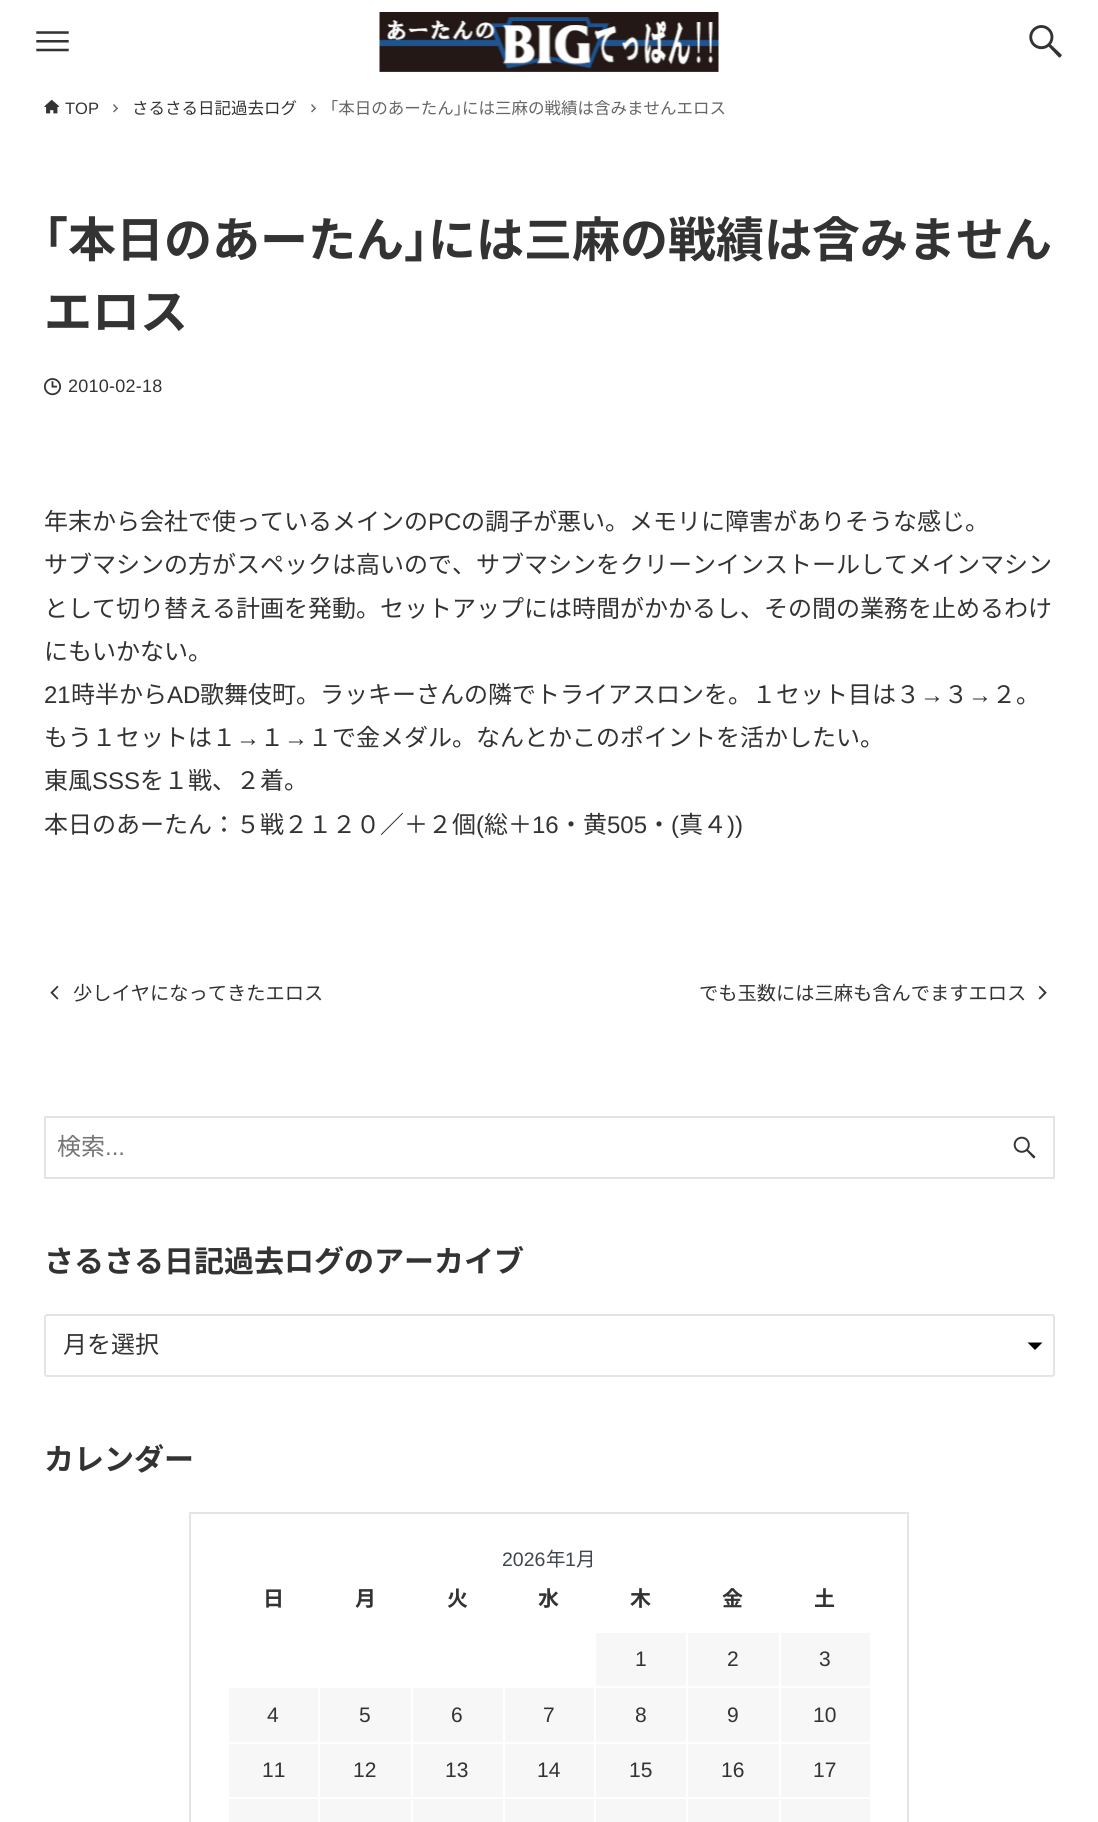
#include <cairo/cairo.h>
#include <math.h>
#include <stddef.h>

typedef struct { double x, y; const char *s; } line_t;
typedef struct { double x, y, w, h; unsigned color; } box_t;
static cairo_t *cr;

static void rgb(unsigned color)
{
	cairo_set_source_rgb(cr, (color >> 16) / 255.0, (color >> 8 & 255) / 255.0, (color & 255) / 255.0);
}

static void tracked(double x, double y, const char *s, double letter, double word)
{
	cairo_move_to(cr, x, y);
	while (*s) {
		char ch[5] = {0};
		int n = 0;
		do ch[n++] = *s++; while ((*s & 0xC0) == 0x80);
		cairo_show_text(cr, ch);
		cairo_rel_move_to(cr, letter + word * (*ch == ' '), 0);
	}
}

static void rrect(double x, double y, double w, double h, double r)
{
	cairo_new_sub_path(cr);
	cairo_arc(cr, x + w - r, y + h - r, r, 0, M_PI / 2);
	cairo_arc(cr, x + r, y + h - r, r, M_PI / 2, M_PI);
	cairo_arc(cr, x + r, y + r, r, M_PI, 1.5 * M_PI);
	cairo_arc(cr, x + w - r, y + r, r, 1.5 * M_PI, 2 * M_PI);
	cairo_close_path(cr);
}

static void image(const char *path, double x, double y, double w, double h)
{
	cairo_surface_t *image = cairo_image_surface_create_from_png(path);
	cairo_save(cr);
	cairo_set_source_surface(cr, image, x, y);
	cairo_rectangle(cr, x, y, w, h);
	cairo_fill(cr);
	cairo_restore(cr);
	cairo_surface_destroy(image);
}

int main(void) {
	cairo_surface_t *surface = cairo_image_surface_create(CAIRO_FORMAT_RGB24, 1098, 1822);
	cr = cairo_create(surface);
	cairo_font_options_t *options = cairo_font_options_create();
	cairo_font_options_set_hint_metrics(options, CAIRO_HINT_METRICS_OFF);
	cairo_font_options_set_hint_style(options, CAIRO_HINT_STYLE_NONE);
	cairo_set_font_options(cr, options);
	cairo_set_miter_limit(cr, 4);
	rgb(0xffffff);
	cairo_paint(cr);
	image("img/1.png", 36, 31, 33, 21);
	image("img/2.png", 379, 12, 340, 60);
	image("img/3.png", 1029, 25, 33, 33);
	image("img/4.png", 44, 100, 16, 14);
	rgb(0x666666);
	cairo_new_path(cr);
	cairo_move_to(cr, 114, 104);
	cairo_line_to(cr, 118, 108.5);
	cairo_line_to(cr, 117, 109.5);
	cairo_line_to(cr, 113, 105);
	cairo_close_path(cr);
	cairo_fill(cr);
	cairo_new_path(cr);
	cairo_move_to(cr, 117, 107.5);
	cairo_line_to(cr, 118, 108.5);
	cairo_line_to(cr, 114, 112.5);
	cairo_line_to(cr, 113, 111.5);
	cairo_close_path(cr);
	cairo_fill(cr);
	cairo_new_path(cr);
	cairo_move_to(cr, 312, 104);
	cairo_line_to(cr, 316, 108.5);
	cairo_line_to(cr, 315, 109.5);
	cairo_line_to(cr, 311, 105);
	cairo_close_path(cr);
	cairo_fill(cr);
	cairo_new_path(cr);
	cairo_move_to(cr, 315, 107.5);
	cairo_line_to(cr, 316, 108.5);
	cairo_line_to(cr, 312, 112.5);
	cairo_line_to(cr, 311, 111.5);
	cairo_close_path(cr);
	cairo_fill(cr);
	image("img/5.png", 44, 378, 17, 18);
	image("img/6.png", 50, 985, 9, 15);
	image("img/7.png", 1038, 985, 9, 15);
	cairo_rectangle(cr, 45, 1117, 1009, 61);
	rgb(0xe4e4e4);
	cairo_stroke(cr);
	image("img/8.png", 1013, 1136, 23, 23);
	rgb(0x000000);
	cairo_new_path(cr);
	cairo_move_to(cr, 1027.5, 1342.5);
	cairo_line_to(cr, 1042.5, 1342.5);
	cairo_line_to(cr, 1035, 1350);
	cairo_close_path(cr);
	cairo_fill(cr);
	rrect(45, 1315, 1009, 61, 2);
	rgb(0xe4e4e4);
	cairo_stroke(cr);
	cairo_rectangle(cr, 190, 1513, 718, 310);
	cairo_stroke(cr);
	{
		static const box_t items[] = {
			{596, 1633, 90, 53, 0xf7f7f7},
			{688, 1633, 91, 53, 0xf7f7f7},
			{781, 1633, 89, 53, 0xf7f7f7},
			{229, 1688, 89, 54, 0xf7f7f7},
			{320, 1688, 91, 54, 0xf7f7f7},
			{413, 1688, 90, 54, 0xf7f7f7},
			{505, 1688, 89, 54, 0xf7f7f7},
			{596, 1688, 90, 54, 0xf7f7f7},
			{688, 1688, 91, 54, 0xf7f7f7},
			{781, 1688, 89, 54, 0xf7f7f7},
			{229, 1744, 89, 53, 0xf7f7f7},
			{320, 1744, 91, 53, 0xf7f7f7},
			{413, 1744, 90, 53, 0xf7f7f7},
			{505, 1744, 89, 53, 0xf7f7f7},
			{596, 1744, 90, 53, 0xf7f7f7},
			{688, 1744, 91, 53, 0xf7f7f7},
			{781, 1744, 89, 53, 0xf7f7f7},
			{229, 1799, 89, 23, 0xf7f7f7},
			{320, 1799, 91, 23, 0xf7f7f7},
			{413, 1799, 90, 23, 0xf7f7f7},
			{505, 1799, 89, 23, 0xf7f7f7},
			{596, 1799, 90, 23, 0xf7f7f7},
			{688, 1799, 91, 23, 0xf7f7f7},
			{781, 1799, 89, 23, 0xf7f7f7},
		};
		for (size_t i = 0; i < sizeof items / sizeof *items; i++) {
			rgb(items[i].color);
			cairo_rectangle(cr, items[i].x, items[i].y, items[i].w, items[i].h);
			cairo_fill(cr);
		}
	}
	cairo_select_font_face(cr, "Liberation Sans", CAIRO_FONT_SLANT_NORMAL, CAIRO_FONT_WEIGHT_NORMAL);
	cairo_set_font_size(cr, 16.5);
	rgb(0x333333);
	cairo_move_to(cr, 65, 114);
	cairo_show_text(cr, "TOP");
	cairo_select_font_face(cr, "Noto Sans JP", CAIRO_FONT_SLANT_NORMAL, CAIRO_FONT_WEIGHT_NORMAL);
	cairo_move_to(cr, 132, 114);
	cairo_show_text(cr, "さるさる日記過去ログ");
	rgb(0x666666);
	cairo_move_to(cr, 330, 114);
	cairo_show_text(cr, "｢本日のあーたん｣には三麻の戦績は含みませんエロス");
	cairo_select_font_face(cr, "Noto Sans JP", CAIRO_FONT_SLANT_NORMAL, CAIRO_FONT_WEIGHT_BOLD);
	cairo_set_font_size(cr, 48);
	rgb(0x333333);
	cairo_move_to(cr, 44, 257);
	cairo_show_text(cr, "｢本日のあーたん｣には三麻の戦績は含みません");
	cairo_move_to(cr, 44, 329);
	cairo_show_text(cr, "エロス");
	cairo_select_font_face(cr, "Liberation Sans", CAIRO_FONT_SLANT_NORMAL, CAIRO_FONT_WEIGHT_NORMAL);
	cairo_set_font_size(cr, 18);
	tracked(68, 392, "2010-02-18", 0.25, 0);
	cairo_select_font_face(cr, "Noto Sans JP", CAIRO_FONT_SLANT_NORMAL, CAIRO_FONT_WEIGHT_NORMAL);
	cairo_set_font_size(cr, 24);
	cairo_move_to(cr, 44, 530);
	cairo_show_text(cr, "年末から会社で使っているメインの");
	cairo_select_font_face(cr, "Liberation Sans", CAIRO_FONT_SLANT_NORMAL, CAIRO_FONT_WEIGHT_NORMAL);
	cairo_move_to(cr, 428, 530);
	cairo_show_text(cr, "PC");
	cairo_select_font_face(cr, "Noto Sans JP", CAIRO_FONT_SLANT_NORMAL, CAIRO_FONT_WEIGHT_NORMAL);
	{
		static const line_t items[] = {
			{461, 530, "の調子が悪い。メモリに障害がありそうな感じ。"},
			{44, 573, "サブマシンの方がスペックは高いので、サブマシンをクリーンインストールしてメインマシン"},
			{44, 617, "として切り替える計画を発動。セットアップには時間がかかるし、その間の業務を止めるわけ"},
			{44, 660, "にもいかない。"},
		};
		for (size_t i = 0; i < sizeof items / sizeof *items; i++) {
			cairo_move_to(cr, items[i].x, items[i].y);
			cairo_show_text(cr, items[i].s);
		}
	}
	cairo_select_font_face(cr, "Liberation Sans", CAIRO_FONT_SLANT_NORMAL, CAIRO_FONT_WEIGHT_NORMAL);
	cairo_move_to(cr, 44, 703);
	cairo_show_text(cr, "21");
	cairo_select_font_face(cr, "Noto Sans JP", CAIRO_FONT_SLANT_NORMAL, CAIRO_FONT_WEIGHT_NORMAL);
	cairo_move_to(cr, 71, 703);
	cairo_show_text(cr, "時半から");
	cairo_select_font_face(cr, "Liberation Sans", CAIRO_FONT_SLANT_NORMAL, CAIRO_FONT_WEIGHT_NORMAL);
	cairo_move_to(cr, 167, 703);
	cairo_show_text(cr, "AD");
	cairo_select_font_face(cr, "Noto Sans JP", CAIRO_FONT_SLANT_NORMAL, CAIRO_FONT_WEIGHT_NORMAL);
	cairo_move_to(cr, 200, 703);
	cairo_show_text(cr, "歌舞伎町。ラッキーさんの隣でトライアスロンを。１セット目は３");
	cairo_select_font_face(cr, "Liberation Sans", CAIRO_FONT_SLANT_NORMAL, CAIRO_FONT_WEIGHT_NORMAL);
	cairo_move_to(cr, 920, 703);
	cairo_show_text(cr, "→");
	cairo_select_font_face(cr, "Noto Sans JP", CAIRO_FONT_SLANT_NORMAL, CAIRO_FONT_WEIGHT_NORMAL);
	cairo_move_to(cr, 944, 703);
	cairo_show_text(cr, "３");
	cairo_select_font_face(cr, "Liberation Sans", CAIRO_FONT_SLANT_NORMAL, CAIRO_FONT_WEIGHT_NORMAL);
	cairo_move_to(cr, 968, 703);
	cairo_show_text(cr, "→");
	cairo_select_font_face(cr, "Noto Sans JP", CAIRO_FONT_SLANT_NORMAL, CAIRO_FONT_WEIGHT_NORMAL);
	cairo_move_to(cr, 992, 703);
	cairo_show_text(cr, "２。");
	cairo_move_to(cr, 44, 746);
	cairo_show_text(cr, "もう１セットは１");
	cairo_select_font_face(cr, "Liberation Sans", CAIRO_FONT_SLANT_NORMAL, CAIRO_FONT_WEIGHT_NORMAL);
	cairo_move_to(cr, 236, 746);
	cairo_show_text(cr, "→");
	cairo_select_font_face(cr, "Noto Sans JP", CAIRO_FONT_SLANT_NORMAL, CAIRO_FONT_WEIGHT_NORMAL);
	cairo_move_to(cr, 260, 746);
	cairo_show_text(cr, "１");
	cairo_select_font_face(cr, "Liberation Sans", CAIRO_FONT_SLANT_NORMAL, CAIRO_FONT_WEIGHT_NORMAL);
	cairo_move_to(cr, 284, 746);
	cairo_show_text(cr, "→");
	cairo_select_font_face(cr, "Noto Sans JP", CAIRO_FONT_SLANT_NORMAL, CAIRO_FONT_WEIGHT_NORMAL);
	cairo_move_to(cr, 308, 746);
	cairo_show_text(cr, "１で金メダル。なんとかこのポイントを活かしたい。");
	cairo_move_to(cr, 44, 789);
	cairo_show_text(cr, "東風");
	cairo_select_font_face(cr, "Liberation Sans", CAIRO_FONT_SLANT_NORMAL, CAIRO_FONT_WEIGHT_NORMAL);
	cairo_move_to(cr, 92, 789);
	cairo_show_text(cr, "SSS");
	cairo_select_font_face(cr, "Noto Sans JP", CAIRO_FONT_SLANT_NORMAL, CAIRO_FONT_WEIGHT_NORMAL);
	cairo_move_to(cr, 140, 789);
	cairo_show_text(cr, "を１戦、２着。");
	cairo_move_to(cr, 44, 833);
	cairo_show_text(cr, "本日のあーたん：５戦２１２０／＋２個");
	cairo_select_font_face(cr, "Liberation Sans", CAIRO_FONT_SLANT_NORMAL, CAIRO_FONT_WEIGHT_NORMAL);
	cairo_move_to(cr, 476, 833);
	cairo_show_text(cr, "(");
	cairo_select_font_face(cr, "Noto Sans JP", CAIRO_FONT_SLANT_NORMAL, CAIRO_FONT_WEIGHT_NORMAL);
	cairo_move_to(cr, 484, 833);
	cairo_show_text(cr, "総＋");
	cairo_select_font_face(cr, "Liberation Sans", CAIRO_FONT_SLANT_NORMAL, CAIRO_FONT_WEIGHT_NORMAL);
	cairo_move_to(cr, 532, 833);
	cairo_show_text(cr, "16");
	cairo_select_font_face(cr, "Noto Sans JP", CAIRO_FONT_SLANT_NORMAL, CAIRO_FONT_WEIGHT_NORMAL);
	cairo_move_to(cr, 559, 833);
	cairo_show_text(cr, "・黄");
	cairo_select_font_face(cr, "Liberation Sans", CAIRO_FONT_SLANT_NORMAL, CAIRO_FONT_WEIGHT_NORMAL);
	cairo_move_to(cr, 607, 833);
	cairo_show_text(cr, "505");
	cairo_select_font_face(cr, "Noto Sans JP", CAIRO_FONT_SLANT_NORMAL, CAIRO_FONT_WEIGHT_NORMAL);
	cairo_move_to(cr, 647, 833);
	cairo_show_text(cr, "・");
	cairo_select_font_face(cr, "Liberation Sans", CAIRO_FONT_SLANT_NORMAL, CAIRO_FONT_WEIGHT_NORMAL);
	cairo_move_to(cr, 671, 833);
	cairo_show_text(cr, "(");
	cairo_select_font_face(cr, "Noto Sans JP", CAIRO_FONT_SLANT_NORMAL, CAIRO_FONT_WEIGHT_NORMAL);
	cairo_move_to(cr, 679, 833);
	cairo_show_text(cr, "真４");
	cairo_select_font_face(cr, "Liberation Sans", CAIRO_FONT_SLANT_NORMAL, CAIRO_FONT_WEIGHT_NORMAL);
	cairo_move_to(cr, 727, 833);
	cairo_show_text(cr, "))");
	cairo_select_font_face(cr, "Noto Sans JP", CAIRO_FONT_SLANT_NORMAL, CAIRO_FONT_WEIGHT_NORMAL);
	cairo_set_font_size(cr, 19.25);
	cairo_move_to(cr, 73, 1000);
	cairo_show_text(cr, "少しイヤになってきたエロス");
	cairo_move_to(cr, 699, 1000);
	cairo_show_text(cr, "でも玉数には三麻も含んでますエロス");
	cairo_set_font_size(cr, 24);
	rgb(0x757575);
	cairo_move_to(cr, 57, 1155);
	cairo_show_text(cr, "検索");
	cairo_select_font_face(cr, "Liberation Sans", CAIRO_FONT_SLANT_NORMAL, CAIRO_FONT_WEIGHT_NORMAL);
	cairo_move_to(cr, 105, 1155);
	cairo_show_text(cr, "...");
	cairo_select_font_face(cr, "Noto Sans JP", CAIRO_FONT_SLANT_NORMAL, CAIRO_FONT_WEIGHT_BOLD);
	cairo_set_font_size(cr, 30);
	rgb(0x333333);
	cairo_move_to(cr, 44, 1272);
	cairo_show_text(cr, "さるさる日記過去ログのアーカイブ");
	cairo_select_font_face(cr, "Noto Sans JP", CAIRO_FONT_SLANT_NORMAL, CAIRO_FONT_WEIGHT_NORMAL);
	cairo_set_font_size(cr, 24);
	cairo_move_to(cr, 63, 1353);
	cairo_show_text(cr, "月を選択");
	cairo_select_font_face(cr, "Noto Sans JP", CAIRO_FONT_SLANT_NORMAL, CAIRO_FONT_WEIGHT_BOLD);
	cairo_set_font_size(cr, 30);
	cairo_move_to(cr, 44, 1470);
	cairo_show_text(cr, "カレンダー");
	cairo_select_font_face(cr, "Liberation Sans", CAIRO_FONT_SLANT_NORMAL, CAIRO_FONT_WEIGHT_NORMAL);
	cairo_set_font_size(cr, 19.5);
	rgb(0x40464d);
	cairo_move_to(cr, 502, 1566);
	cairo_show_text(cr, "2026");
	cairo_select_font_face(cr, "Noto Sans JP", CAIRO_FONT_SLANT_NORMAL, CAIRO_FONT_WEIGHT_NORMAL);
	cairo_move_to(cr, 546, 1566);
	cairo_show_text(cr, "年");
	cairo_select_font_face(cr, "Liberation Sans", CAIRO_FONT_SLANT_NORMAL, CAIRO_FONT_WEIGHT_NORMAL);
	cairo_move_to(cr, 565, 1566);
	cairo_show_text(cr, "1");
	cairo_select_font_face(cr, "Noto Sans JP", CAIRO_FONT_SLANT_NORMAL, CAIRO_FONT_WEIGHT_NORMAL);
	cairo_move_to(cr, 576, 1566);
	cairo_show_text(cr, "月");
	cairo_select_font_face(cr, "Noto Sans JP", CAIRO_FONT_SLANT_NORMAL, CAIRO_FONT_WEIGHT_BOLD);
	cairo_set_font_size(cr, 21);
	rgb(0x333333);
	{
		static const line_t items[] = {
			{263, 1606, "日"},
			{355, 1606, "月"},
			{447, 1606, "火"},
			{538, 1606, "水"},
			{630, 1606, "木"},
			{722, 1606, "金"},
			{814, 1606, "土"},
		};
		for (size_t i = 0; i < sizeof items / sizeof *items; i++) {
			cairo_move_to(cr, items[i].x, items[i].y);
			cairo_show_text(cr, items[i].s);
		}
	}
	cairo_select_font_face(cr, "Liberation Sans", CAIRO_FONT_SLANT_NORMAL, CAIRO_FONT_WEIGHT_NORMAL);
	{
		static const line_t items[] = {
			{635, 1666, "1"},
			{727, 1666, "2"},
			{819, 1666, "3"},
			{267, 1722, "4"},
			{359, 1722, "5"},
			{451, 1722, "6"},
			{543, 1722, "7"},
			{635, 1722, "8"},
			{727, 1722, "9"},
			{813, 1722, "10"},
			{262, 1777, "11"},
			{353, 1777, "12"},
			{445, 1777, "13"},
			{537, 1777, "14"},
			{629, 1777, "15"},
			{721, 1777, "16"},
			{813, 1777, "17"},
		};
		for (size_t i = 0; i < sizeof items / sizeof *items; i++) {
			cairo_move_to(cr, items[i].x, items[i].y);
			cairo_show_text(cr, items[i].s);
		}
	}
	cairo_surface_write_to_png(surface, "page.png");
	cairo_font_options_destroy(options);
	cairo_destroy(cr);
	cairo_surface_destroy(surface);
	return 0;
}
